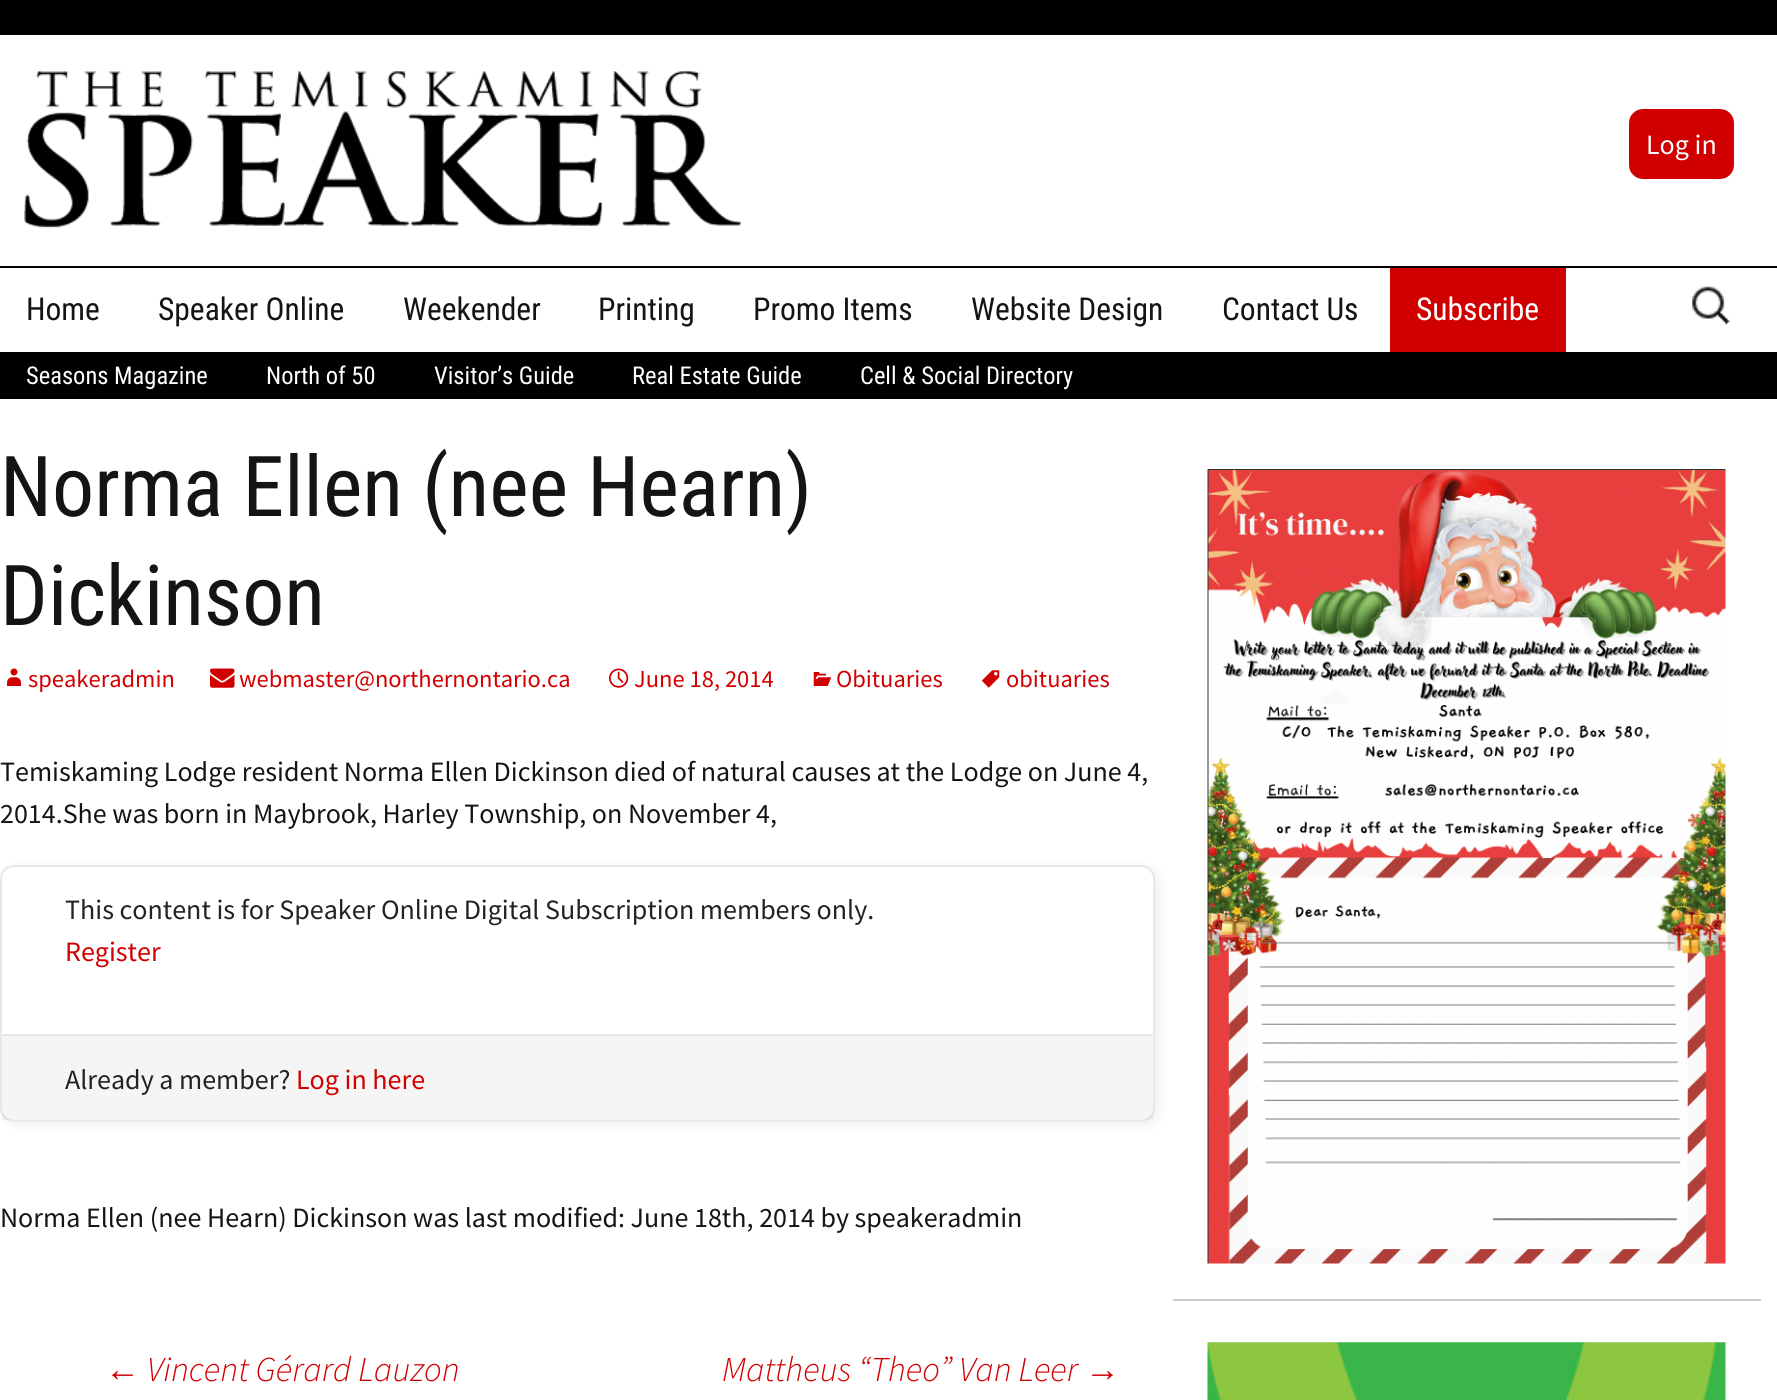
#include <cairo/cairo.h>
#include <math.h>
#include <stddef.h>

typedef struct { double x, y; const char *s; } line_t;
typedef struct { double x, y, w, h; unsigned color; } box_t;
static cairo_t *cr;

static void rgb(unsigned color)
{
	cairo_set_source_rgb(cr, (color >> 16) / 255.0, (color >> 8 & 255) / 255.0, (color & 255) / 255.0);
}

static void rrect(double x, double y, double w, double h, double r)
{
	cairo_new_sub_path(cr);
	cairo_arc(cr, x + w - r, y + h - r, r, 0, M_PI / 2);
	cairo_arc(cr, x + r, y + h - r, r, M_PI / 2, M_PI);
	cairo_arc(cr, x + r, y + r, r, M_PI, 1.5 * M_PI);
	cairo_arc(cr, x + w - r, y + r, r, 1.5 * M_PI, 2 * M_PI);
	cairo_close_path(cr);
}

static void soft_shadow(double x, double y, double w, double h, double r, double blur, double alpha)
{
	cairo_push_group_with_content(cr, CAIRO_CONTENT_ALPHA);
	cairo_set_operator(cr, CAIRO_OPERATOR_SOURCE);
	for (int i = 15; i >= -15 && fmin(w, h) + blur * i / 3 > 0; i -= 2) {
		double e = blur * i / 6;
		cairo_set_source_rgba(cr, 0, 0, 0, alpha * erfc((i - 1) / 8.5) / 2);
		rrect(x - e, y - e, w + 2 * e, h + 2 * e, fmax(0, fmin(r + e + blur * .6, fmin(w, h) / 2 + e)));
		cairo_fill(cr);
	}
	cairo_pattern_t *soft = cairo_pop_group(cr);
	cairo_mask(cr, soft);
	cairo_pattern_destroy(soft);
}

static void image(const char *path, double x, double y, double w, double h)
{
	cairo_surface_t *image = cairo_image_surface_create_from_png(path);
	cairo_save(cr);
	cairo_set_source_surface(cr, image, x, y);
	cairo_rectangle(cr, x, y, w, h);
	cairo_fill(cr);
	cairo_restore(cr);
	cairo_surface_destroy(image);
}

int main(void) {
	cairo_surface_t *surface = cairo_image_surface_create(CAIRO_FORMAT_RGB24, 1777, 1400);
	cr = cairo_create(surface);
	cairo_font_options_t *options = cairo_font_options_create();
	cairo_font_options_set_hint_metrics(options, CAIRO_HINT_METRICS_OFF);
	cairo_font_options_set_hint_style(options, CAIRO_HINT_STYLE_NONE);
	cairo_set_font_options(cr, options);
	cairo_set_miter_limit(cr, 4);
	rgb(0xffffff);
	cairo_paint(cr);
	rgb(0x000000);
	cairo_rectangle(cr, 0, 0, 1777, 35);
	cairo_fill(cr);
	image("img/1.png", 24, 71, 717, 157);
	rgb(0xd10000);
	rrect(1629, 109, 105, 70, 14);
	cairo_fill(cr);
	{
		static const box_t items[] = {
			{0, 266, 1777, 2, 0x000000},
			{0, 352, 1777, 47, 0x000000},
			{1390, 268, 176, 84, 0xd10000},
		};
		for (size_t i = 0; i < sizeof items / sizeof *items; i++) {
			rgb(items[i].color);
			cairo_rectangle(cr, items[i].x, items[i].y, items[i].w, items[i].h);
			cairo_fill(cr);
		}
	}
	image("img/2.png", 1692, 286, 38, 39);
	image("img/3.png", 7, 668, 14, 18);
	image("img/4.png", 210, 668, 25, 20);
	image("img/5.png", 609, 668, 20, 20);
	image("img/6.png", 813, 672, 19, 14);
	image("img/7.png", 981, 670, 19, 18);
	rgb(0x000000);
	soft_shadow(4, 868, 1155, 257, 14, 6, 0.07);
	rgb(0xffffff);
	rrect(1, 866, 1153, 255, 13);
	cairo_fill_preserve(cr);
	rgb(0xe8e8e8);
	cairo_stroke(cr);
	cairo_set_source_rgba(cr, 0, 0, 0, 0.04);
	cairo_rectangle(cr, 2, 1036, 1151, 84);
	cairo_fill(cr);
	rgb(0xe8e8e8);
	cairo_rectangle(cr, 2, 1034, 1151, 2);
	cairo_fill(cr);
	rgb(0xcccccc);
	cairo_rectangle(cr, 1173, 1299, 588, 2);
	cairo_fill(cr);
	image("img/8.png", 1207, 469, 519, 795);
	image("img/9.png", 1207, 1342, 519, 58);
	cairo_select_font_face(cr, "Source Sans Pro", CAIRO_FONT_SLANT_NORMAL, CAIRO_FONT_WEIGHT_NORMAL);
	cairo_set_font_size(cr, 28);
	rgb(0xffffff);
	cairo_move_to(cr, 1646, 154);
	cairo_show_text(cr, "Log in");
	cairo_select_font_face(cr, "Roboto Condensed", CAIRO_FONT_SLANT_NORMAL, CAIRO_FONT_WEIGHT_NORMAL);
	cairo_set_font_size(cr, 31.5);
	rgb(0x141412);
	{
		static const line_t items[] = {
			{26, 320, "Home"},
			{158, 320, "Speaker Online"},
			{403, 320, "Weekender"},
			{598, 320, "Printing"},
			{753, 320, "Promo Items"},
			{971, 320, "Website Design"},
			{1222, 320, "Contact Us"},
		};
		for (size_t i = 0; i < sizeof items / sizeof *items; i++) {
			cairo_move_to(cr, items[i].x, items[i].y);
			cairo_show_text(cr, items[i].s);
		}
	}
	rgb(0xffffff);
	cairo_move_to(cr, 1416, 320);
	cairo_show_text(cr, "Subscribe");
	cairo_set_font_size(cr, 24.5);
	{
		static const line_t items[] = {
			{26, 384, "Seasons Magazine"},
			{266, 384, "North of 50"},
			{434, 384, "Visitor’s Guide"},
			{632, 384, "Real Estate Guide"},
			{860, 384, "Cell & Social Directory"},
		};
		for (size_t i = 0; i < sizeof items / sizeof *items; i++) {
			cairo_move_to(cr, items[i].x, items[i].y);
			cairo_show_text(cr, items[i].s);
		}
	}
	cairo_set_font_size(cr, 84);
	rgb(0x141412);
	cairo_move_to(cr, 0, 516);
	cairo_show_text(cr, "Norma Ellen (nee Hearn)");
	cairo_move_to(cr, 0, 625);
	cairo_show_text(cr, "Dickinson");
	cairo_select_font_face(cr, "Source Sans Pro", CAIRO_FONT_SLANT_NORMAL, CAIRO_FONT_WEIGHT_NORMAL);
	cairo_set_font_size(cr, 24.5);
	rgb(0xd10000);
	{
		static const line_t items[] = {
			{28, 687, "speakeradmin"},
			{239, 687, "webmaster@northernontario.ca"},
			{634, 687, "June 18, 2014"},
			{836, 687, "Obituaries"},
			{1006, 687, "obituaries"},
		};
		for (size_t i = 0; i < sizeof items / sizeof *items; i++) {
			cairo_move_to(cr, items[i].x, items[i].y);
			cairo_show_text(cr, items[i].s);
		}
	}
	cairo_set_font_size(cr, 28);
	rgb(0x141412);
	cairo_move_to(cr, 0, 781);
	cairo_show_text(cr, "Temiskaming Lodge resident Norma Ellen Dickinson died of natural causes at the Lodge on June 4,");
	cairo_move_to(cr, 0, 823);
	cairo_show_text(cr, "2014.She was born in Maybrook, Harley Township, on November 4,");
	rgb(0x222222);
	cairo_move_to(cr, 65, 919);
	cairo_show_text(cr, "This content is for Speaker Online Digital Subscription members only.");
	rgb(0xd10000);
	cairo_move_to(cr, 65, 961);
	cairo_show_text(cr, "Register");
	rgb(0x222222);
	cairo_move_to(cr, 65, 1089);
	cairo_show_text(cr, "Already a member?");
	rgb(0xd10000);
	cairo_move_to(cr, 296, 1089);
	cairo_show_text(cr, "Log in here");
	rgb(0x141412);
	cairo_move_to(cr, 0, 1227);
	cairo_show_text(cr, "Norma Ellen (nee Hearn) Dickinson was last modified: June 18th, 2014 by speakeradmin");
	cairo_select_font_face(cr, "Liberation Sans", CAIRO_FONT_SLANT_ITALIC, CAIRO_FONT_WEIGHT_NORMAL);
	cairo_set_font_size(cr, 35);
	rgb(0xd10000);
	cairo_move_to(cr, 105, 1381);
	cairo_show_text(cr, "←");
	cairo_select_font_face(cr, "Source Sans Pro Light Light", CAIRO_FONT_SLANT_ITALIC, CAIRO_FONT_WEIGHT_NORMAL);
	cairo_move_to(cr, 147, 1381);
	cairo_show_text(cr, "Vincent Gérard Lauzon");
	cairo_move_to(cr, 722, 1381);
	cairo_show_text(cr, "Mattheus “Theo” Van Leer");
	cairo_select_font_face(cr, "Liberation Sans", CAIRO_FONT_SLANT_ITALIC, CAIRO_FONT_WEIGHT_NORMAL);
	cairo_move_to(cr, 1085, 1381);
	cairo_show_text(cr, "→");
	cairo_surface_write_to_png(surface, "page.png");
	cairo_font_options_destroy(options);
	cairo_destroy(cr);
	cairo_surface_destroy(surface);
	return 0;
}
